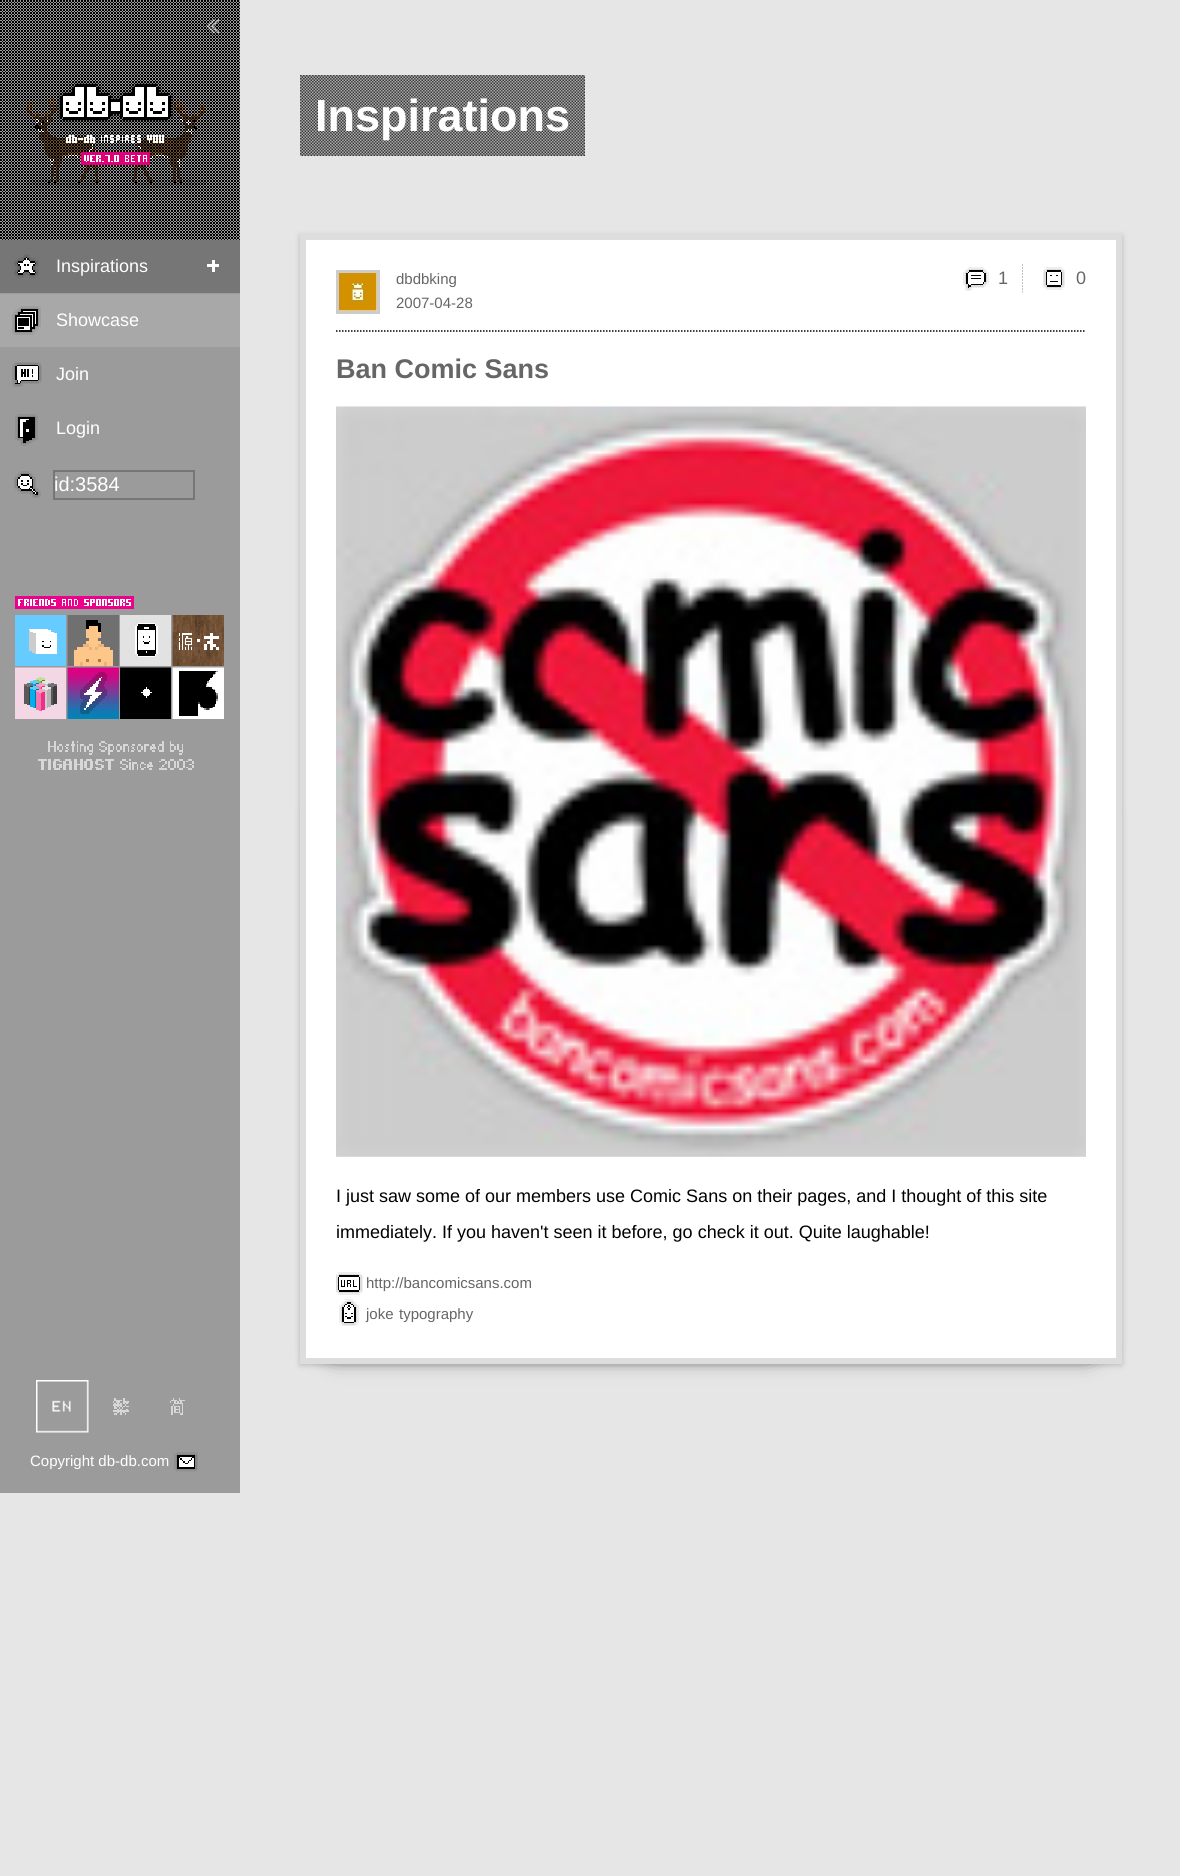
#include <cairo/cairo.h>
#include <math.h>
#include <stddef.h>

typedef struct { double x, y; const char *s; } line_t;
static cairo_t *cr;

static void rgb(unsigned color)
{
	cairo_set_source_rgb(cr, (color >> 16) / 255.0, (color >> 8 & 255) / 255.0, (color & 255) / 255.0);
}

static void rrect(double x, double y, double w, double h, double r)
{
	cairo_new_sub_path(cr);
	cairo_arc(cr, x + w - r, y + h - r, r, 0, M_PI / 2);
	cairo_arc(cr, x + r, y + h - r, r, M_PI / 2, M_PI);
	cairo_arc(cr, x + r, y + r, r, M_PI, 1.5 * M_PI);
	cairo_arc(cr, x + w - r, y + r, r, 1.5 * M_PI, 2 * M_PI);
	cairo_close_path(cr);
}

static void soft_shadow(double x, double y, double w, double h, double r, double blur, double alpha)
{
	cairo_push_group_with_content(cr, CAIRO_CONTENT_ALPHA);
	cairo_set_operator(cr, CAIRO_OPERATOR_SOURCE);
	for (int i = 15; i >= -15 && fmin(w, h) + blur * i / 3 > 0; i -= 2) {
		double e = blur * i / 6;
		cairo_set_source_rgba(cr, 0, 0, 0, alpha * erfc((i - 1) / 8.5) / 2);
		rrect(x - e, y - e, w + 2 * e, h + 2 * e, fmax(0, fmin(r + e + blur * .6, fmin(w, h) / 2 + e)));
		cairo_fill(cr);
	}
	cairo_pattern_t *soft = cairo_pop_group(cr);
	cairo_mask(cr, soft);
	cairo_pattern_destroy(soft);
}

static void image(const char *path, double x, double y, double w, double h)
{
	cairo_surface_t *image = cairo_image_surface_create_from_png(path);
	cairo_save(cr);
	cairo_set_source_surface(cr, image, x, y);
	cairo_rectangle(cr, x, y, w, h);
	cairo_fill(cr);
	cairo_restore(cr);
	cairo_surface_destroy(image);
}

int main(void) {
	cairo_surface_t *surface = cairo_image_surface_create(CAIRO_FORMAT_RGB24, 1180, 1876);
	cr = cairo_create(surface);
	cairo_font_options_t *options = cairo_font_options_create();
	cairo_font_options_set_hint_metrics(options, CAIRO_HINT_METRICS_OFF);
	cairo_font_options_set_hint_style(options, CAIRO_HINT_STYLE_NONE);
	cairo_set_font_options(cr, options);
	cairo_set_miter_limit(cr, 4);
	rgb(0xe6e6e6);
	cairo_paint(cr);
	image("img/1.png", 300, 75, 285, 81);
	rgb(0x9b9b9b);
	cairo_rectangle(cr, 0, 0, 240, 1493);
	cairo_fill(cr);
	image("img/15.png", 26, 98, 180, 90);
	image("img/2.png", 0, 0, 240, 240);
	image("img/3.png", 57, 81, 117, 42);
	image("img/4.png", 204, 16, 18, 20);
	image("img/5.png", 15, 596, 119, 13);
	image("img/6.png", 15, 615, 51, 51);
	image("img/7.png", 67, 615, 52, 51);
	image("img/8.png", 120, 615, 51, 51);
	image("img/9.png", 172, 615, 52, 51);
	image("img/10.png", 15, 667, 51, 52);
	image("img/11.png", 67, 667, 52, 52);
	image("img/12.png", 120, 667, 51, 52);
	image("img/13.png", 172, 667, 52, 52);
	image("img/14.png", 38, 741, 156, 29);
	rgb(0x767676);
	cairo_rectangle(cr, 0, 240, 240, 53);
	cairo_fill(cr);
	image("img/16.png", 14, 254, 25, 24);
	image("img/17.png", 207, 260, 12, 12);
	rgb(0xa8a8a8);
	cairo_rectangle(cr, 0, 294, 240, 53);
	cairo_fill(cr);
	image("img/18.png", 12, 306, 29, 29);
	image("img/19.png", 12, 362, 30, 25);
	image("img/20.png", 15, 414, 23, 32);
	image("img/21.png", 14, 471, 27, 27);
	cairo_rectangle(cr, 54, 471, 140, 28);
	rgb(0x767676);
	cairo_stroke(cr);
	image("img/22.png", 36, 1380, 53, 53);
	image("img/23.png", 113, 1398, 16, 17);
	image("img/24.png", 170, 1398, 15, 17);
	image("img/25.png", 174, 1452, 24, 20);
	rgb(0x000000);
	soft_shadow(300, 236, 822, 1129, 0, 3, 0.2);
	soft_shadow(321, 800, 780, 558, 15, 11, 0.5);
	rgb(0xffffff);
	cairo_rectangle(cr, 303, 237, 816, 1124);
	cairo_fill_preserve(cr);
	rgb(0xdddddd);
	cairo_set_line_width(cr, 6);
	cairo_stroke(cr);
	image("img/26.png", 963, 267, 26, 24);
	image("img/27.png", 1022, 264, 1, 29);
	image("img/28.png", 1043, 267, 22, 23);
	cairo_rectangle(cr, 337.5, 271.5, 41, 41);
	rgb(0xcccccc);
	cairo_set_line_width(cr, 3);
	cairo_stroke(cr);
	image("img/29.png", 339, 273, 38, 38);
	cairo_new_path(cr);
	cairo_move_to(cr, 336, 331);
	cairo_line_to(cr, 1086, 331);
	rgb(0x000000);
	cairo_set_line_width(cr, 1.5);
	cairo_set_dash(cr, (double[]){1.5, 1.5}, 2, 0);
	cairo_stroke(cr);
	rgb(0xe3e3e3);
	cairo_rectangle(cr, 336, 1156, 750, 1);
	cairo_fill(cr);
	image("img/30.png", 336, 406, 750, 751);
	image("img/31.png", 336, 1272, 27, 23);
	image("img/32.png", 339, 1299, 20, 27);
	cairo_select_font_face(cr, "Liberation Sans", CAIRO_FONT_SLANT_NORMAL, CAIRO_FONT_WEIGHT_BOLD);
	cairo_set_font_size(cr, 45);
	rgb(0xffffff);
	cairo_move_to(cr, 315, 131);
	cairo_show_text(cr, "Inspirations");
	cairo_select_font_face(cr, "Liberation Sans", CAIRO_FONT_SLANT_NORMAL, CAIRO_FONT_WEIGHT_NORMAL);
	cairo_set_font_size(cr, 18);
	{
		static const line_t items[] = {
			{56, 272, "Inspirations"},
			{56, 326, "Showcase"},
			{56, 380, "Join"},
			{56, 434, "Login"},
		};
		for (size_t i = 0; i < sizeof items / sizeof *items; i++) {
			cairo_move_to(cr, items[i].x, items[i].y);
			cairo_show_text(cr, items[i].s);
		}
	}
	cairo_set_font_size(cr, 20);
	cairo_move_to(cr, 54, 491);
	cairo_show_text(cr, "id:3584");
	cairo_set_font_size(cr, 15);
	cairo_move_to(cr, 30, 1466);
	cairo_show_text(cr, "Copyright db-db.com");
	rgb(0x666666);
	cairo_move_to(cr, 396, 284);
	cairo_show_text(cr, "dbdbking");
	cairo_set_font_size(cr, 18);
	cairo_move_to(cr, 998, 284);
	cairo_show_text(cr, "1");
	cairo_move_to(cr, 1076, 284);
	cairo_show_text(cr, "0");
	cairo_set_font_size(cr, 15);
	cairo_move_to(cr, 396, 308);
	cairo_show_text(cr, "2007-04-28");
	cairo_select_font_face(cr, "Liberation Sans", CAIRO_FONT_SLANT_NORMAL, CAIRO_FONT_WEIGHT_BOLD);
	cairo_set_font_size(cr, 27);
	cairo_move_to(cr, 336, 378);
	cairo_show_text(cr, "Ban Comic Sans");
	cairo_select_font_face(cr, "Liberation Sans", CAIRO_FONT_SLANT_NORMAL, CAIRO_FONT_WEIGHT_NORMAL);
	cairo_set_font_size(cr, 18);
	rgb(0x000000);
	cairo_move_to(cr, 336, 1202);
	cairo_show_text(cr, "I just saw some of our members use Comic Sans on their pages, and I thought of this site");
	cairo_move_to(cr, 336, 1238);
	cairo_show_text(cr, "immediately. If you haven't seen it before, go check it out. Quite laughable!");
	cairo_set_font_size(cr, 15);
	rgb(0x666666);
	{
		static const line_t items[] = {
			{366, 1288, "http://bancomicsans.com"},
			{366, 1319, "joke"},
			{399, 1319, "typography"},
		};
		for (size_t i = 0; i < sizeof items / sizeof *items; i++) {
			cairo_move_to(cr, items[i].x, items[i].y);
			cairo_show_text(cr, items[i].s);
		}
	}
	cairo_surface_write_to_png(surface, "page.png");
	cairo_font_options_destroy(options);
	cairo_destroy(cr);
	cairo_surface_destroy(surface);
	return 0;
}
